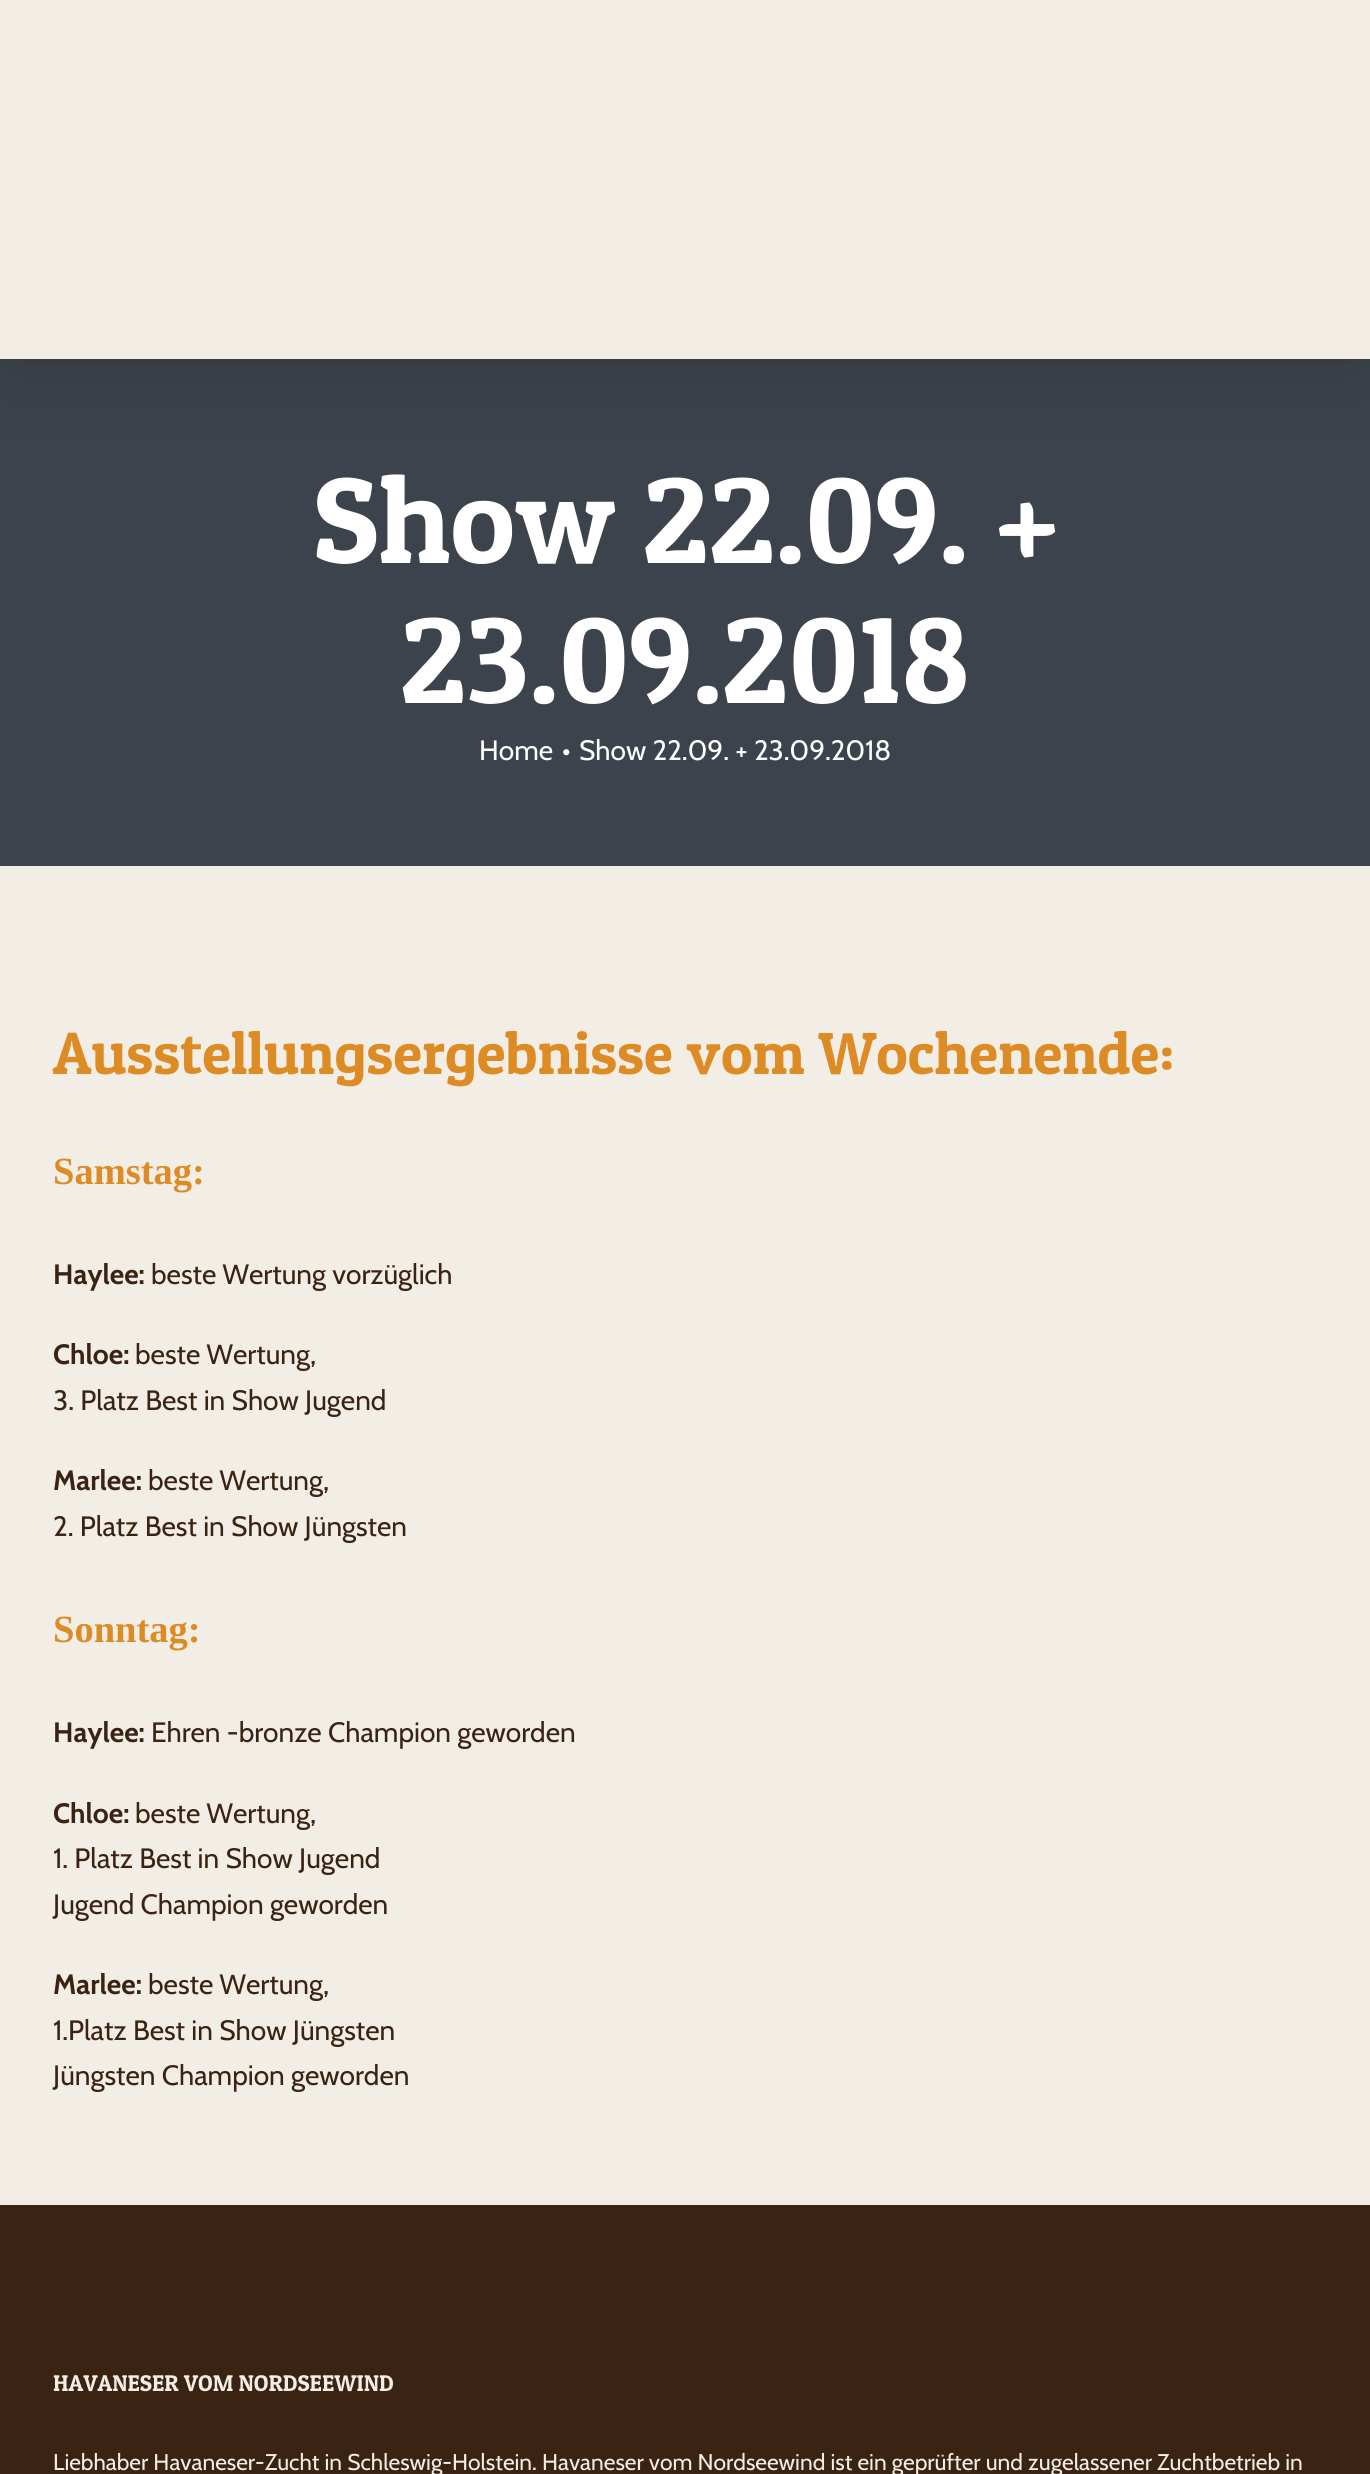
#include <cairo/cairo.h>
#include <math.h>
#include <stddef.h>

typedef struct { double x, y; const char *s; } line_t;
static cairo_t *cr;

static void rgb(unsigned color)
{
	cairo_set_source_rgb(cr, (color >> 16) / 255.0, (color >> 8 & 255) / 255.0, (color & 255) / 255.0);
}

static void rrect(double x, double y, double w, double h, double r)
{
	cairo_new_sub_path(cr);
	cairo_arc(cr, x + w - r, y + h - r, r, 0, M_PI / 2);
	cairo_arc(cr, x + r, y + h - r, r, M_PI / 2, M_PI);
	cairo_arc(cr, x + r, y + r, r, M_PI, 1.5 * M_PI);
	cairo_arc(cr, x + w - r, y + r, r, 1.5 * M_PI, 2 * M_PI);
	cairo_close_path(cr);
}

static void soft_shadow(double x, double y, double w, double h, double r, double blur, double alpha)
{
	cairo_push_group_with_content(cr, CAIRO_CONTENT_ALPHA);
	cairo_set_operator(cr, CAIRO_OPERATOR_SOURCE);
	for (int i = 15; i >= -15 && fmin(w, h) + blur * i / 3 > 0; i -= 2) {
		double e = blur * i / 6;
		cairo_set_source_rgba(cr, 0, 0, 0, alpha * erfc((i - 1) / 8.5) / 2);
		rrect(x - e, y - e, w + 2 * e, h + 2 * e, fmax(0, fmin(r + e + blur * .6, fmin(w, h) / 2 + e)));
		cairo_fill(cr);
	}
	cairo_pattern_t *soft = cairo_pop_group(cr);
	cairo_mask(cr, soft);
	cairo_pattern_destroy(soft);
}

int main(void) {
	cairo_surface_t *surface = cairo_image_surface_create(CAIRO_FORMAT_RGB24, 1370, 2474);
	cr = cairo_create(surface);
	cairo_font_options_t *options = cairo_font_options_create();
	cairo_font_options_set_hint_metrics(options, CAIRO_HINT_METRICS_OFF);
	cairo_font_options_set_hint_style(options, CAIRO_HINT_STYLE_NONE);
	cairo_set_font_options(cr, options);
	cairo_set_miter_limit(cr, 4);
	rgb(0xf2eee5);
	cairo_paint(cr);
	rgb(0x3d434c);
	cairo_rectangle(cr, 0, 359, 1370, 507);
	cairo_fill(cr);
	rgb(0x000000);
	soft_shadow(4, 21, 1363, 352, 0, 44, 0.14);
	rgb(0xf2eee5);
	cairo_rectangle(cr, 0, 0, 1370, 359);
	cairo_fill(cr);
	rgb(0x3b2314);
	cairo_rectangle(cr, 0, 2205, 1370, 269);
	cairo_fill(cr);
	cairo_select_font_face(cr, "Patua One", CAIRO_FONT_SLANT_NORMAL, CAIRO_FONT_WEIGHT_NORMAL);
	cairo_set_font_size(cr, 122.5);
	rgb(0xffffff);
	cairo_move_to(cr, 313, 563);
	cairo_show_text(cr, "Show 22.09. +");
	cairo_move_to(cr, 400, 703);
	cairo_show_text(cr, "23.09.2018");
	cairo_select_font_face(cr, "Cabin", CAIRO_FONT_SLANT_NORMAL, CAIRO_FONT_WEIGHT_NORMAL);
	cairo_set_font_size(cr, 28);
	{
		static const line_t items[] = {
			{479, 760, "Home"},
			{562, 760, "•"},
			{579, 760, "Show 22.09. + 23.09.2018"},
		};
		for (size_t i = 0; i < sizeof items / sizeof *items; i++) {
			cairo_move_to(cr, items[i].x, items[i].y);
			cairo_show_text(cr, items[i].s);
		}
	}
	cairo_select_font_face(cr, "Patua One", CAIRO_FONT_SLANT_NORMAL, CAIRO_FONT_WEIGHT_NORMAL);
	cairo_set_font_size(cr, 59.5);
	rgb(0xdc8b25);
	cairo_move_to(cr, 53, 1074);
	cairo_show_text(cr, "Ausstellungsergebnisse vom Wochenende:");
	cairo_select_font_face(cr, "Liberation Serif", CAIRO_FONT_SLANT_NORMAL, CAIRO_FONT_WEIGHT_BOLD);
	cairo_set_font_size(cr, 38.5);
	cairo_move_to(cr, 53, 1184);
	cairo_show_text(cr, "Samstag:");
	cairo_select_font_face(cr, "Cabin", CAIRO_FONT_SLANT_NORMAL, CAIRO_FONT_WEIGHT_BOLD);
	cairo_set_font_size(cr, 28);
	rgb(0x3b2314);
	cairo_move_to(cr, 53, 1284);
	cairo_show_text(cr, "Haylee:");
	cairo_select_font_face(cr, "Cabin", CAIRO_FONT_SLANT_NORMAL, CAIRO_FONT_WEIGHT_NORMAL);
	cairo_move_to(cr, 151, 1284);
	cairo_show_text(cr, "beste Wertung vorzüglich");
	cairo_select_font_face(cr, "Cabin", CAIRO_FONT_SLANT_NORMAL, CAIRO_FONT_WEIGHT_BOLD);
	cairo_move_to(cr, 53, 1364);
	cairo_show_text(cr, "Chloe:");
	cairo_select_font_face(cr, "Cabin", CAIRO_FONT_SLANT_NORMAL, CAIRO_FONT_WEIGHT_NORMAL);
	cairo_move_to(cr, 135, 1364);
	cairo_show_text(cr, "beste Wertung,");
	cairo_move_to(cr, 53, 1410);
	cairo_show_text(cr, "3. Platz Best in Show Jugend");
	cairo_select_font_face(cr, "Cabin", CAIRO_FONT_SLANT_NORMAL, CAIRO_FONT_WEIGHT_BOLD);
	cairo_move_to(cr, 53, 1490);
	cairo_show_text(cr, "Marlee:");
	cairo_select_font_face(cr, "Cabin", CAIRO_FONT_SLANT_NORMAL, CAIRO_FONT_WEIGHT_NORMAL);
	cairo_move_to(cr, 148, 1490);
	cairo_show_text(cr, "beste Wertung,");
	cairo_move_to(cr, 53, 1536);
	cairo_show_text(cr, "2. Platz Best in Show Jüngsten");
	cairo_select_font_face(cr, "Liberation Serif", CAIRO_FONT_SLANT_NORMAL, CAIRO_FONT_WEIGHT_BOLD);
	cairo_set_font_size(cr, 38.5);
	rgb(0xdc8b25);
	cairo_move_to(cr, 53, 1642);
	cairo_show_text(cr, "Sonntag:");
	cairo_select_font_face(cr, "Cabin", CAIRO_FONT_SLANT_NORMAL, CAIRO_FONT_WEIGHT_BOLD);
	cairo_set_font_size(cr, 28);
	rgb(0x3b2314);
	cairo_move_to(cr, 53, 1742);
	cairo_show_text(cr, "Haylee:");
	cairo_select_font_face(cr, "Cabin", CAIRO_FONT_SLANT_NORMAL, CAIRO_FONT_WEIGHT_NORMAL);
	cairo_move_to(cr, 151, 1742);
	cairo_show_text(cr, "Ehren -bronze Champion geworden");
	cairo_select_font_face(cr, "Cabin", CAIRO_FONT_SLANT_NORMAL, CAIRO_FONT_WEIGHT_BOLD);
	cairo_move_to(cr, 53, 1823);
	cairo_show_text(cr, "Chloe:");
	cairo_select_font_face(cr, "Cabin", CAIRO_FONT_SLANT_NORMAL, CAIRO_FONT_WEIGHT_NORMAL);
	{
		static const line_t items[] = {
			{135, 1823, "beste Wertung,"},
			{53, 1868, "1. Platz Best in Show Jugend"},
			{53, 1914, "Jugend Champion geworden"},
		};
		for (size_t i = 0; i < sizeof items / sizeof *items; i++) {
			cairo_move_to(cr, items[i].x, items[i].y);
			cairo_show_text(cr, items[i].s);
		}
	}
	cairo_select_font_face(cr, "Cabin", CAIRO_FONT_SLANT_NORMAL, CAIRO_FONT_WEIGHT_BOLD);
	cairo_move_to(cr, 53, 1994);
	cairo_show_text(cr, "Marlee:");
	cairo_select_font_face(cr, "Cabin", CAIRO_FONT_SLANT_NORMAL, CAIRO_FONT_WEIGHT_NORMAL);
	{
		static const line_t items[] = {
			{148, 1994, "beste Wertung,"},
			{53, 2040, "1.Platz Best in Show Jüngsten"},
			{53, 2085, "Jüngsten Champion geworden"},
		};
		for (size_t i = 0; i < sizeof items / sizeof *items; i++) {
			cairo_move_to(cr, items[i].x, items[i].y);
			cairo_show_text(cr, items[i].s);
		}
	}
	cairo_select_font_face(cr, "Patua One", CAIRO_FONT_SLANT_NORMAL, CAIRO_FONT_WEIGHT_NORMAL);
	cairo_set_font_size(cr, 22.75);
	rgb(0xf2eee5);
	cairo_move_to(cr, 53, 2391);
	cairo_show_text(cr, "HAVANESER VOM NORDSEEWIND");
	cairo_select_font_face(cr, "Cabin", CAIRO_FONT_SLANT_NORMAL, CAIRO_FONT_WEIGHT_NORMAL);
	cairo_move_to(cr, 53, 2470);
	cairo_show_text(cr, "Liebhaber Havaneser-Zucht in Schleswig-Holstein. Havaneser vom Nordseewind ist ein geprüfter und zugelassener Zuchtbetrieb in");
	cairo_surface_write_to_png(surface, "page.png");
	cairo_font_options_destroy(options);
	cairo_destroy(cr);
	cairo_surface_destroy(surface);
	return 0;
}
